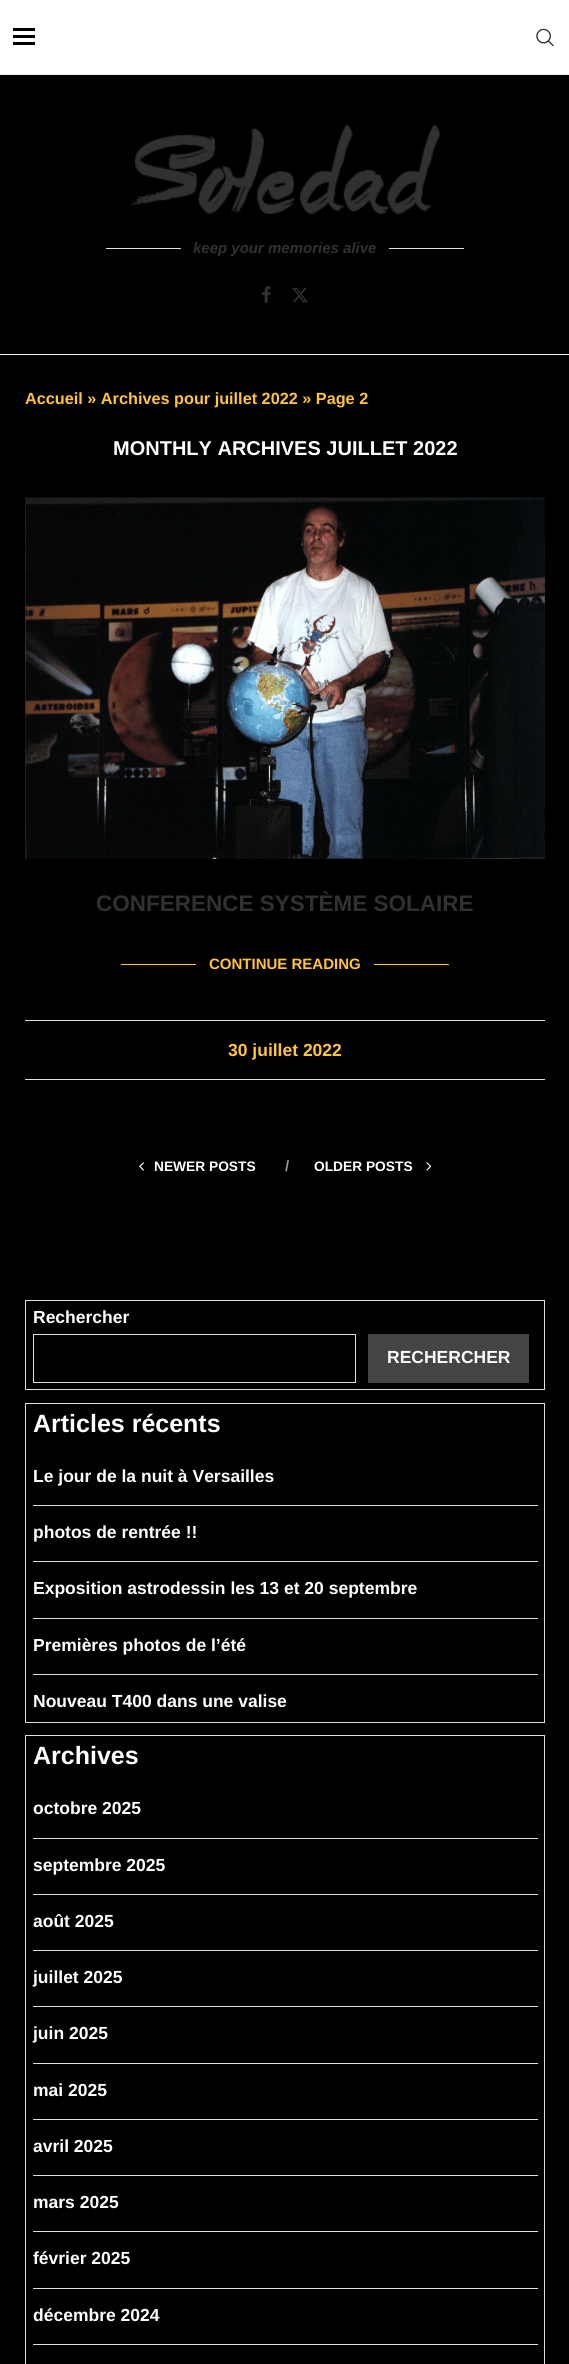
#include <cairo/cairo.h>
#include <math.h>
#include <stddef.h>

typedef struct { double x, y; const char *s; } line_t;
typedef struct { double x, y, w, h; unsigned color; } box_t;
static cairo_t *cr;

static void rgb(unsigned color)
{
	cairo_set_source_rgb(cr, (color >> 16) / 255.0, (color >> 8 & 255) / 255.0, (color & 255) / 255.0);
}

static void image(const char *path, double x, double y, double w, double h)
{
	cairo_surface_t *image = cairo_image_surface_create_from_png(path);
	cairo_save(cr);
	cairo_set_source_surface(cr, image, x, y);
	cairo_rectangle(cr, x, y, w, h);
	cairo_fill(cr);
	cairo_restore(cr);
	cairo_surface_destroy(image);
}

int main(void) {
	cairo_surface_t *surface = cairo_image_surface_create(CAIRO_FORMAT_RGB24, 569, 2364);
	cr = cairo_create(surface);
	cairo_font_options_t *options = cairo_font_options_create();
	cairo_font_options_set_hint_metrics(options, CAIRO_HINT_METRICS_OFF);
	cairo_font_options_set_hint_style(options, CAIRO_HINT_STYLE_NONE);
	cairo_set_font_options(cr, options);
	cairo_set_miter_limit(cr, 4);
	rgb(0x000000);
	cairo_paint(cr);
	{
		static const box_t items[] = {
			{0, 0, 569, 74, 0xffffff},
			{0, 74, 569, 1, 0xececec},
			{13, 28, 22, 3, 0x000000},
			{13, 35, 22, 3, 0x000000},
			{13, 42, 22, 3, 0x000000},
		};
		for (size_t i = 0; i < sizeof items / sizeof *items; i++) {
			rgb(items[i].color);
			cairo_rectangle(cr, items[i].x, items[i].y, items[i].w, items[i].h);
			cairo_fill(cr);
		}
	}
	image("img/1.png", 536, 28, 18, 19);
	rgb(0xececec);
	cairo_rectangle(cr, 0, 354, 569, 1);
	cairo_fill(cr);
	image("img/2.png", 131, 125, 309, 90);
	rgb(0xdedede);
	cairo_rectangle(cr, 106, 248, 75, 1);
	cairo_fill(cr);
	cairo_rectangle(cr, 389, 248, 75, 1);
	cairo_fill(cr);
	image("img/3.png", 262, 286, 9, 17);
	image("img/4.png", 292, 287, 16, 16);
	image("img/5.png", 25, 497, 520, 362);
	{
		static const box_t items[] = {
			{121, 964, 75, 1, 0xffc43a},
			{374, 964, 75, 1, 0xffc43a},
			{25, 1020, 520, 1, 0xdedede},
			{25, 1079, 520, 1, 0xdedede},
		};
		for (size_t i = 0; i < sizeof items / sizeof *items; i++) {
			rgb(items[i].color);
			cairo_rectangle(cr, items[i].x, items[i].y, items[i].w, items[i].h);
			cairo_fill(cr);
		}
	}
	image("img/6.png", 139, 1162, 5, 9);
	image("img/7.png", 426, 1162, 6, 9);
	cairo_rectangle(cr, 25.5, 1300.5, 519, 89);
	cairo_set_line_width(cr, 1);
	cairo_stroke(cr);
	cairo_rectangle(cr, 33.5, 1334.5, 322, 48);
	cairo_stroke(cr);
	rgb(0x444444);
	cairo_rectangle(cr, 368, 1334, 161, 49);
	cairo_fill(cr);
	cairo_rectangle(cr, 25.5, 1403.5, 519, 319);
	rgb(0xdedede);
	cairo_stroke(cr);
	{
		static const box_t items[] = {
			{33, 1505, 505, 1, 0xdedede},
			{33, 1561, 505, 1, 0xdedede},
			{33, 1618, 505, 1, 0xdedede},
			{33, 1674, 505, 1, 0xdedede},
		};
		for (size_t i = 0; i < sizeof items / sizeof *items; i++) {
			rgb(items[i].color);
			cairo_rectangle(cr, items[i].x, items[i].y, items[i].w, items[i].h);
			cairo_fill(cr);
		}
	}
	cairo_rectangle(cr, 25.5, 1735.5, 519, 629);
	cairo_stroke(cr);
	{
		static const box_t items[] = {
			{33, 1838, 505, 1, 0xdedede},
			{33, 1894, 505, 1, 0xdedede},
			{33, 1950, 505, 1, 0xdedede},
			{33, 2006, 505, 1, 0xdedede},
			{33, 2063, 505, 1, 0xdedede},
			{33, 2119, 505, 1, 0xdedede},
			{33, 2175, 505, 1, 0xdedede},
			{33, 2231, 505, 1, 0xdedede},
			{33, 2288, 505, 1, 0xdedede},
			{33, 2344, 505, 1, 0xdedede},
		};
		for (size_t i = 0; i < sizeof items / sizeof *items; i++) {
			rgb(items[i].color);
			cairo_rectangle(cr, items[i].x, items[i].y, items[i].w, items[i].h);
			cairo_fill(cr);
		}
	}
	cairo_select_font_face(cr, "Liberation Sans", CAIRO_FONT_SLANT_ITALIC, CAIRO_FONT_WEIGHT_BOLD);
	cairo_set_font_size(cr, 15);
	rgb(0x313131);
	cairo_move_to(cr, 193, 253);
	cairo_show_text(cr, "keep your memories alive");
	cairo_select_font_face(cr, "Liberation Sans", CAIRO_FONT_SLANT_NORMAL, CAIRO_FONT_WEIGHT_BOLD);
	cairo_set_font_size(cr, 16.25);
	rgb(0xffc43a);
	cairo_move_to(cr, 25, 404);
	cairo_show_text(cr, "Accueil » Archives pour juillet 2022 » Page 2");
	cairo_set_font_size(cr, 20);
	rgb(0xffffff);
	cairo_move_to(cr, 113, 455);
	cairo_show_text(cr, "MONTHLY ARCHIVES JUILLET 2022");
	cairo_set_font_size(cr, 22.5);
	rgb(0x313131);
	cairo_move_to(cr, 96, 911);
	cairo_show_text(cr, "CONFERENCE SYSTÈME SOLAIRE");
	cairo_set_font_size(cr, 15);
	rgb(0xffc43a);
	cairo_move_to(cr, 209, 969);
	cairo_show_text(cr, "CONTINUE READING");
	cairo_set_font_size(cr, 17.5);
	cairo_move_to(cr, 228, 1056);
	cairo_show_text(cr, "30 juillet 2022");
	cairo_set_font_size(cr, 13.75);
	rgb(0xffffff);
	cairo_move_to(cr, 154, 1171);
	cairo_show_text(cr, "NEWER POSTS");
	cairo_set_font_size(cr, 15);
	rgb(0x999999);
	cairo_move_to(cr, 285, 1171);
	cairo_show_text(cr, "/");
	cairo_set_font_size(cr, 13.75);
	rgb(0xffffff);
	cairo_move_to(cr, 314, 1171);
	cairo_show_text(cr, "OLDER POSTS");
	cairo_set_font_size(cr, 17.5);
	cairo_move_to(cr, 33, 1323);
	cairo_show_text(cr, "Rechercher");
	rgb(0xf9f9f9);
	cairo_move_to(cr, 387, 1363);
	cairo_show_text(cr, "RECHERCHER");
	cairo_set_font_size(cr, 25);
	rgb(0xffffff);
	cairo_move_to(cr, 33, 1432);
	cairo_show_text(cr, "Articles récents");
	cairo_set_font_size(cr, 17.5);
	{
		static const line_t items[] = {
			{33, 1482, "Le jour de la nuit à Versailles"},
			{33, 1538, "photos de rentrée !!"},
			{33, 1594, "Exposition astrodessin les 13 et 20 septembre"},
			{33, 1651, "Premières photos de l’été"},
			{33, 1707, "Nouveau T400 dans une valise"},
		};
		for (size_t i = 0; i < sizeof items / sizeof *items; i++) {
			cairo_move_to(cr, items[i].x, items[i].y);
			cairo_show_text(cr, items[i].s);
		}
	}
	cairo_set_font_size(cr, 25);
	cairo_move_to(cr, 33, 1764);
	cairo_show_text(cr, "Archives");
	cairo_set_font_size(cr, 17.5);
	{
		static const line_t items[] = {
			{33, 1814, "octobre 2025"},
			{33, 1871, "septembre 2025"},
			{33, 1927, "août 2025"},
			{33, 1983, "juillet 2025"},
			{33, 2039, "juin 2025"},
			{33, 2096, "mai 2025"},
			{33, 2152, "avril 2025"},
			{33, 2208, "mars 2025"},
			{33, 2264, "février 2025"},
			{33, 2321, "décembre 2024"},
		};
		for (size_t i = 0; i < sizeof items / sizeof *items; i++) {
			cairo_move_to(cr, items[i].x, items[i].y);
			cairo_show_text(cr, items[i].s);
		}
	}
	cairo_surface_write_to_png(surface, "page.png");
	cairo_font_options_destroy(options);
	cairo_destroy(cr);
	cairo_surface_destroy(surface);
	return 0;
}
